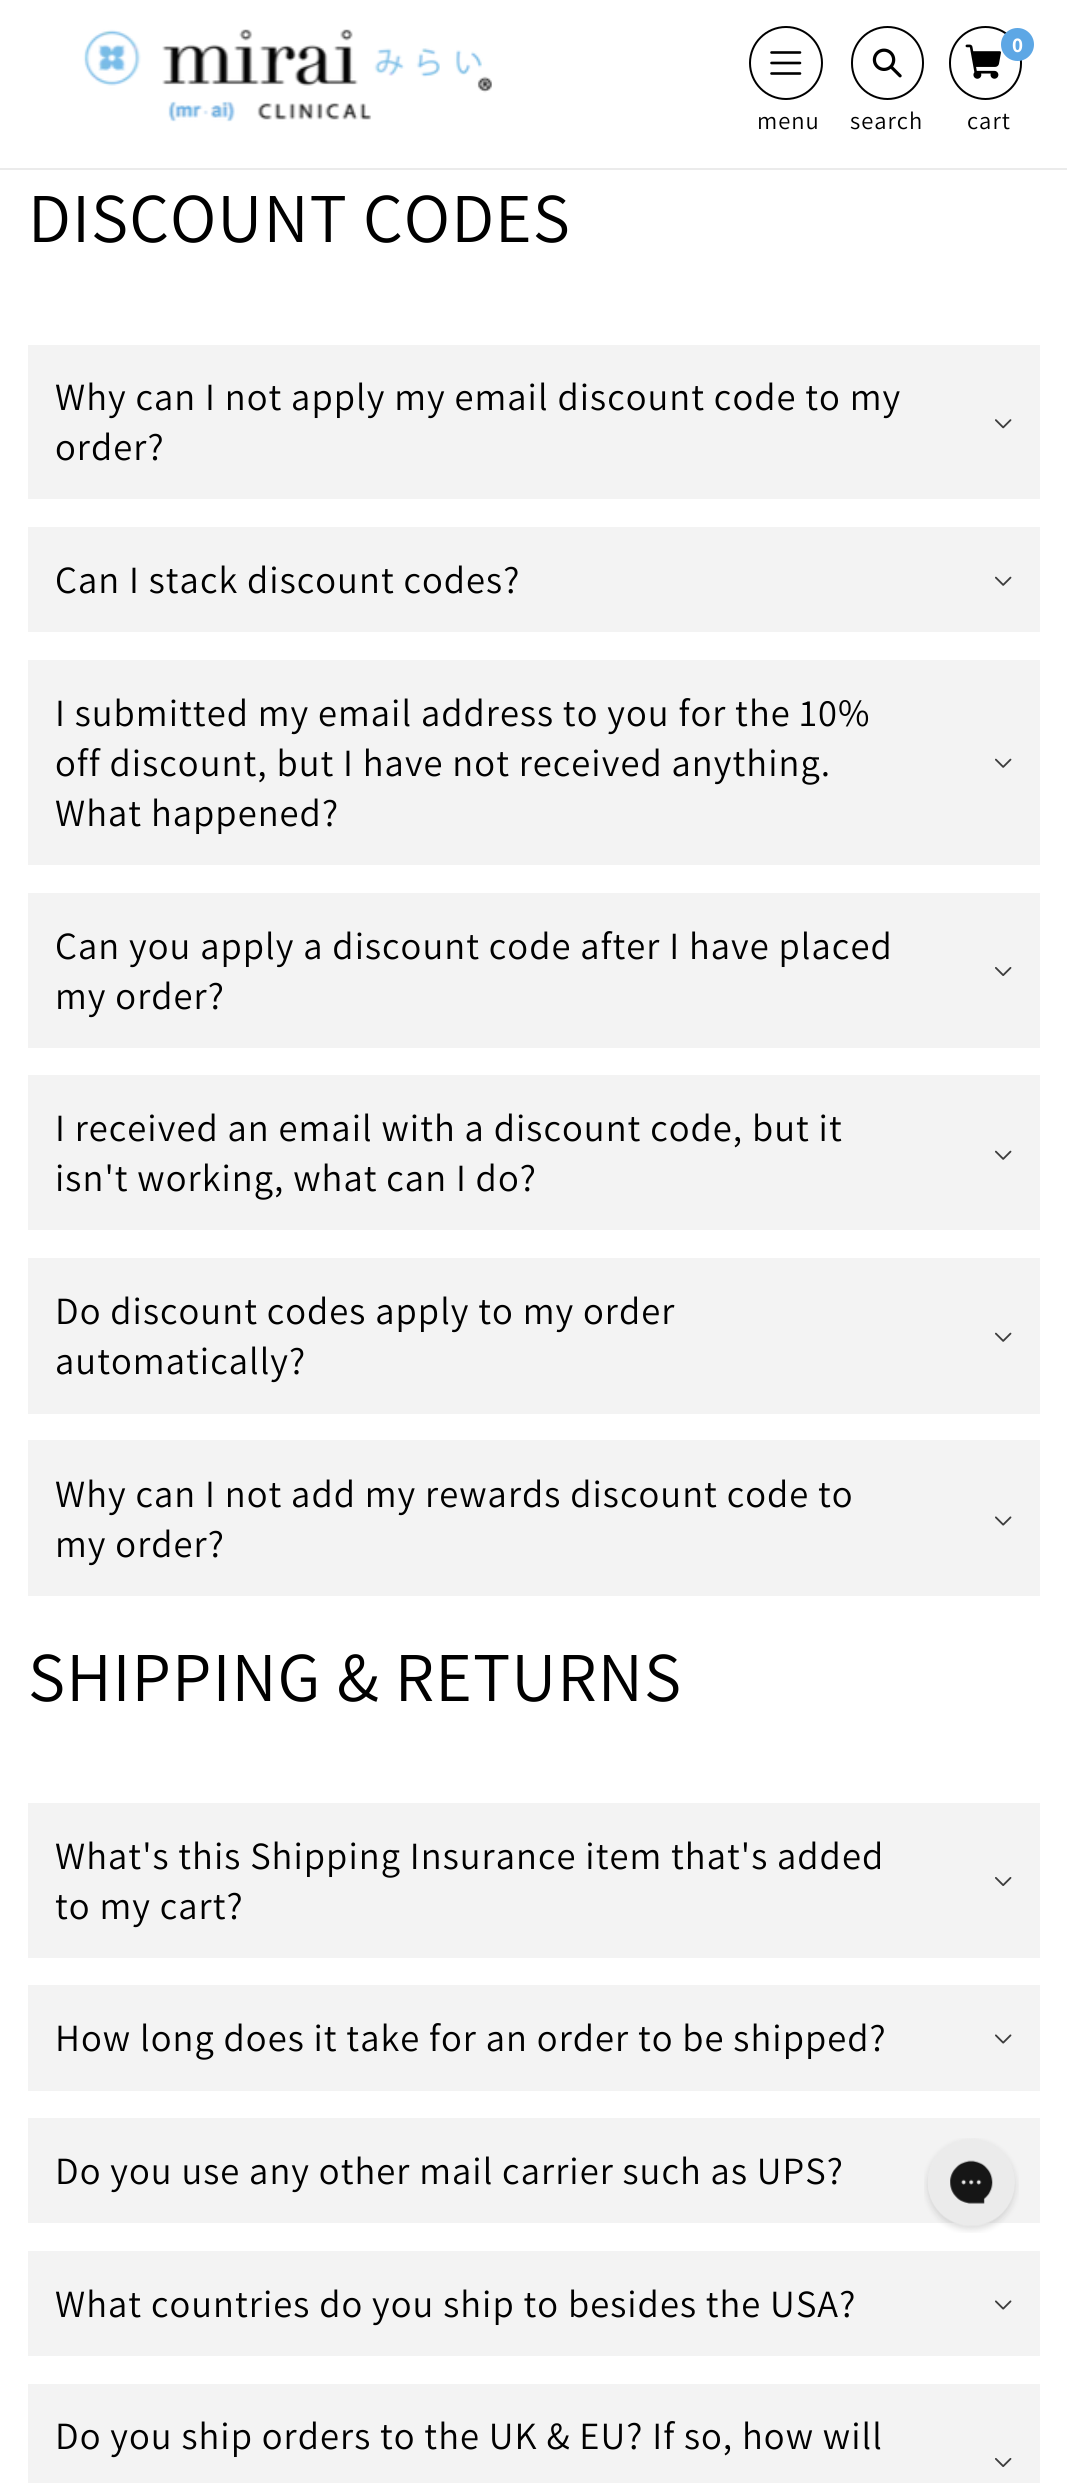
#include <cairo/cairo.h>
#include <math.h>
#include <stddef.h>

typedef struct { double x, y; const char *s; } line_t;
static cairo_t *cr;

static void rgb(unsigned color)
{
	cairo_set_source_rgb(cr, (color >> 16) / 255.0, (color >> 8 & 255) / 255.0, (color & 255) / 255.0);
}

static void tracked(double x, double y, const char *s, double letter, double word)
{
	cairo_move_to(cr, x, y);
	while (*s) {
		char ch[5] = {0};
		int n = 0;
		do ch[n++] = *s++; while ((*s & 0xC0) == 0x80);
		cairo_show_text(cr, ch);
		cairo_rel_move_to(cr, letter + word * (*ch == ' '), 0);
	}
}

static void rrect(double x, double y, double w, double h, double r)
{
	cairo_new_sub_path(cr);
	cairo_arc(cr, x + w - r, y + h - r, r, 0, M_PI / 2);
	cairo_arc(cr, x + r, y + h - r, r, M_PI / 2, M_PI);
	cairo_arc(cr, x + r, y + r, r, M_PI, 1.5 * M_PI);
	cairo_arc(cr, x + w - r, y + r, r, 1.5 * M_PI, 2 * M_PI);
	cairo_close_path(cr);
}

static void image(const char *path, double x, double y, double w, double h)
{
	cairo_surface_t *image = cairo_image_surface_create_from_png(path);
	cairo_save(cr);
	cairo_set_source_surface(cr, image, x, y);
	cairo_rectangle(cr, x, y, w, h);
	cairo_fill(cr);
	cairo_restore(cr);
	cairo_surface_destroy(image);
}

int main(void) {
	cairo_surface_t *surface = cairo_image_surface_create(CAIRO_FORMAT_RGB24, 1067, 2483);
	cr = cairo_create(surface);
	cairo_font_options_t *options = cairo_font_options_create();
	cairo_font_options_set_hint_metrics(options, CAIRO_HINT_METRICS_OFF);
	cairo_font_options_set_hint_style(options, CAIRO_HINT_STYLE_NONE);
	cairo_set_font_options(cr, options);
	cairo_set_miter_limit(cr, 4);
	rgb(0xffffff);
	cairo_paint(cr);
	rgb(0xebebeb);
	cairo_rectangle(cr, 0, 168, 1067, 2);
	cairo_fill(cr);
	image("img/1.png", 83, 29, 409, 93);
	cairo_arc(cr, 786, 63, 36, 0, 2 * M_PI);
	rgb(0x000000);
	cairo_stroke(cr);
	cairo_new_path(cr);
	cairo_move_to(cr, 771.5, 52.5);
	cairo_line_to(cr, 800, 52.5);
	cairo_move_to(cr, 771.5, 63);
	cairo_line_to(cr, 800, 63);
	cairo_move_to(cr, 771.5, 73.5);
	cairo_line_to(cr, 800, 73.5);
	cairo_set_line_width(cr, 2.6);
	cairo_set_line_cap(cr, CAIRO_LINE_CAP_ROUND);
	cairo_set_line_join(cr, CAIRO_LINE_JOIN_ROUND);
	cairo_stroke(cr);
	rrect(852, 27, 71, 72, 35.5);
	cairo_set_line_width(cr, 2);
	cairo_set_line_cap(cr, CAIRO_LINE_CAP_BUTT);
	cairo_set_line_join(cr, CAIRO_LINE_JOIN_MITER);
	cairo_stroke(cr);
	image("img/2.png", 872, 48, 30, 30);
	rrect(950, 27, 71, 72, 35.5);
	cairo_stroke(cr);
	image("img/3.png", 965, 44, 36, 35);
	rgb(0x5da7e5);
	cairo_arc(cr, 1017.5, 44.5, 16.5, 0, 2 * M_PI);
	cairo_fill(cr);
	rgb(0xf3f3f3);
	cairo_rectangle(cr, 28, 345, 1012, 154);
	cairo_fill(cr);
	image("img/4.png", 995, 419, 17, 10);
	cairo_rectangle(cr, 28, 527, 1012, 105);
	cairo_fill(cr);
	image("img/5.png", 995, 576, 17, 10);
	cairo_rectangle(cr, 28, 660, 1012, 205);
	cairo_fill(cr);
	image("img/5.png", 995, 758, 17, 10);
	cairo_rectangle(cr, 28, 893, 1012, 155);
	cairo_fill(cr);
	image("img/6.png", 995, 967, 17, 9);
	cairo_rectangle(cr, 28, 1075, 1012, 155);
	cairo_fill(cr);
	image("img/5.png", 995, 1150, 17, 10);
	cairo_rectangle(cr, 28, 1258, 1012, 156);
	cairo_fill(cr);
	image("img/5.png", 995, 1332, 17, 10);
	cairo_rectangle(cr, 28, 1440, 1012, 156);
	cairo_fill(cr);
	image("img/7.png", 995, 1516, 17, 10);
	cairo_rectangle(cr, 28, 1803, 1012, 155);
	cairo_fill(cr);
	image("img/6.png", 995, 1877, 17, 9);
	cairo_rectangle(cr, 28, 1985, 1012, 106);
	cairo_fill(cr);
	image("img/7.png", 995, 2034, 17, 10);
	cairo_rectangle(cr, 28, 2118, 1012, 105);
	cairo_fill(cr);
	cairo_rectangle(cr, 28, 2251, 1012, 105);
	cairo_fill(cr);
	image("img/7.png", 995, 2300, 17, 10);
	cairo_rectangle(cr, 28, 2384, 1012, 99);
	cairo_fill(cr);
	image("img/6.png", 995, 2458, 17, 9);
	image("img/8.png", 924, 2138, 95, 95);
	cairo_select_font_face(cr, "Assistant", CAIRO_FONT_SLANT_NORMAL, CAIRO_FONT_WEIGHT_NORMAL);
	cairo_set_font_size(cr, 24.5);
	rgb(0x000000);
	tracked(757, 129, "menu", 1, 0);
	tracked(850, 129, "search", 1, 0);
	cairo_select_font_face(cr, "Assistant", CAIRO_FONT_SLANT_NORMAL, CAIRO_FONT_WEIGHT_BOLD);
	cairo_set_font_size(cr, 21);
	rgb(0xffffff);
	tracked(1012, 52, "0", 1, 0);
	cairo_select_font_face(cr, "Assistant", CAIRO_FONT_SLANT_NORMAL, CAIRO_FONT_WEIGHT_NORMAL);
	cairo_set_font_size(cr, 24.5);
	rgb(0x000000);
	tracked(967, 129, "cart", 1, 0);
	cairo_set_font_size(cr, 70);
	tracked(28, 242, "DISCOUNT CODES", 1.05, 0);
	cairo_set_font_size(cr, 38.5);
	{
		static const line_t items[] = {
			{55, 410, "Why can I not apply my email discount code to my"},
			{55, 460, "order?"},
			{55, 593, "Can I stack discount codes?"},
			{55, 726, "I submitted my email address to you for the 10%"},
			{55, 776, "off discount, but I have not received anything."},
			{55, 826, "What happened?"},
			{55, 959, "Can you apply a discount code after I have placed"},
			{55, 1009, "my order?"},
			{55, 1141, "I received an email with a discount code, but it"},
			{55, 1191, "isn't working, what can I do?"},
			{55, 1324, "Do discount codes apply to my order"},
			{55, 1374, "automatically?"},
			{55, 1507, "Why can I not add my rewards discount code to"},
			{55, 1557, "my order?"},
		};
		for (size_t i = 0; i < sizeof items / sizeof *items; i++) {
			tracked(items[i].x, items[i].y, items[i].s, 1.05, 0);
		}
	}
	cairo_set_font_size(cr, 70);
	tracked(28, 1701, "SHIPPING & RETURNS", 1.05, 0);
	cairo_set_font_size(cr, 38.5);
	{
		static const line_t items[] = {
			{55, 1869, "What's this Shipping Insurance item that's added"},
			{55, 1919, "to my cart?"},
			{55, 2051, "How long does it take for an order to be shipped?"},
			{55, 2184, "Do you use any other mail carrier such as UPS?"},
			{55, 2317, "What countries do you ship to besides the USA?"},
			{55, 2449, "Do you ship orders to the UK & EU? If so, how will"},
		};
		for (size_t i = 0; i < sizeof items / sizeof *items; i++) {
			tracked(items[i].x, items[i].y, items[i].s, 1.05, 0);
		}
	}
	cairo_surface_write_to_png(surface, "page.png");
	cairo_font_options_destroy(options);
	cairo_destroy(cr);
	cairo_surface_destroy(surface);
	return 0;
}
